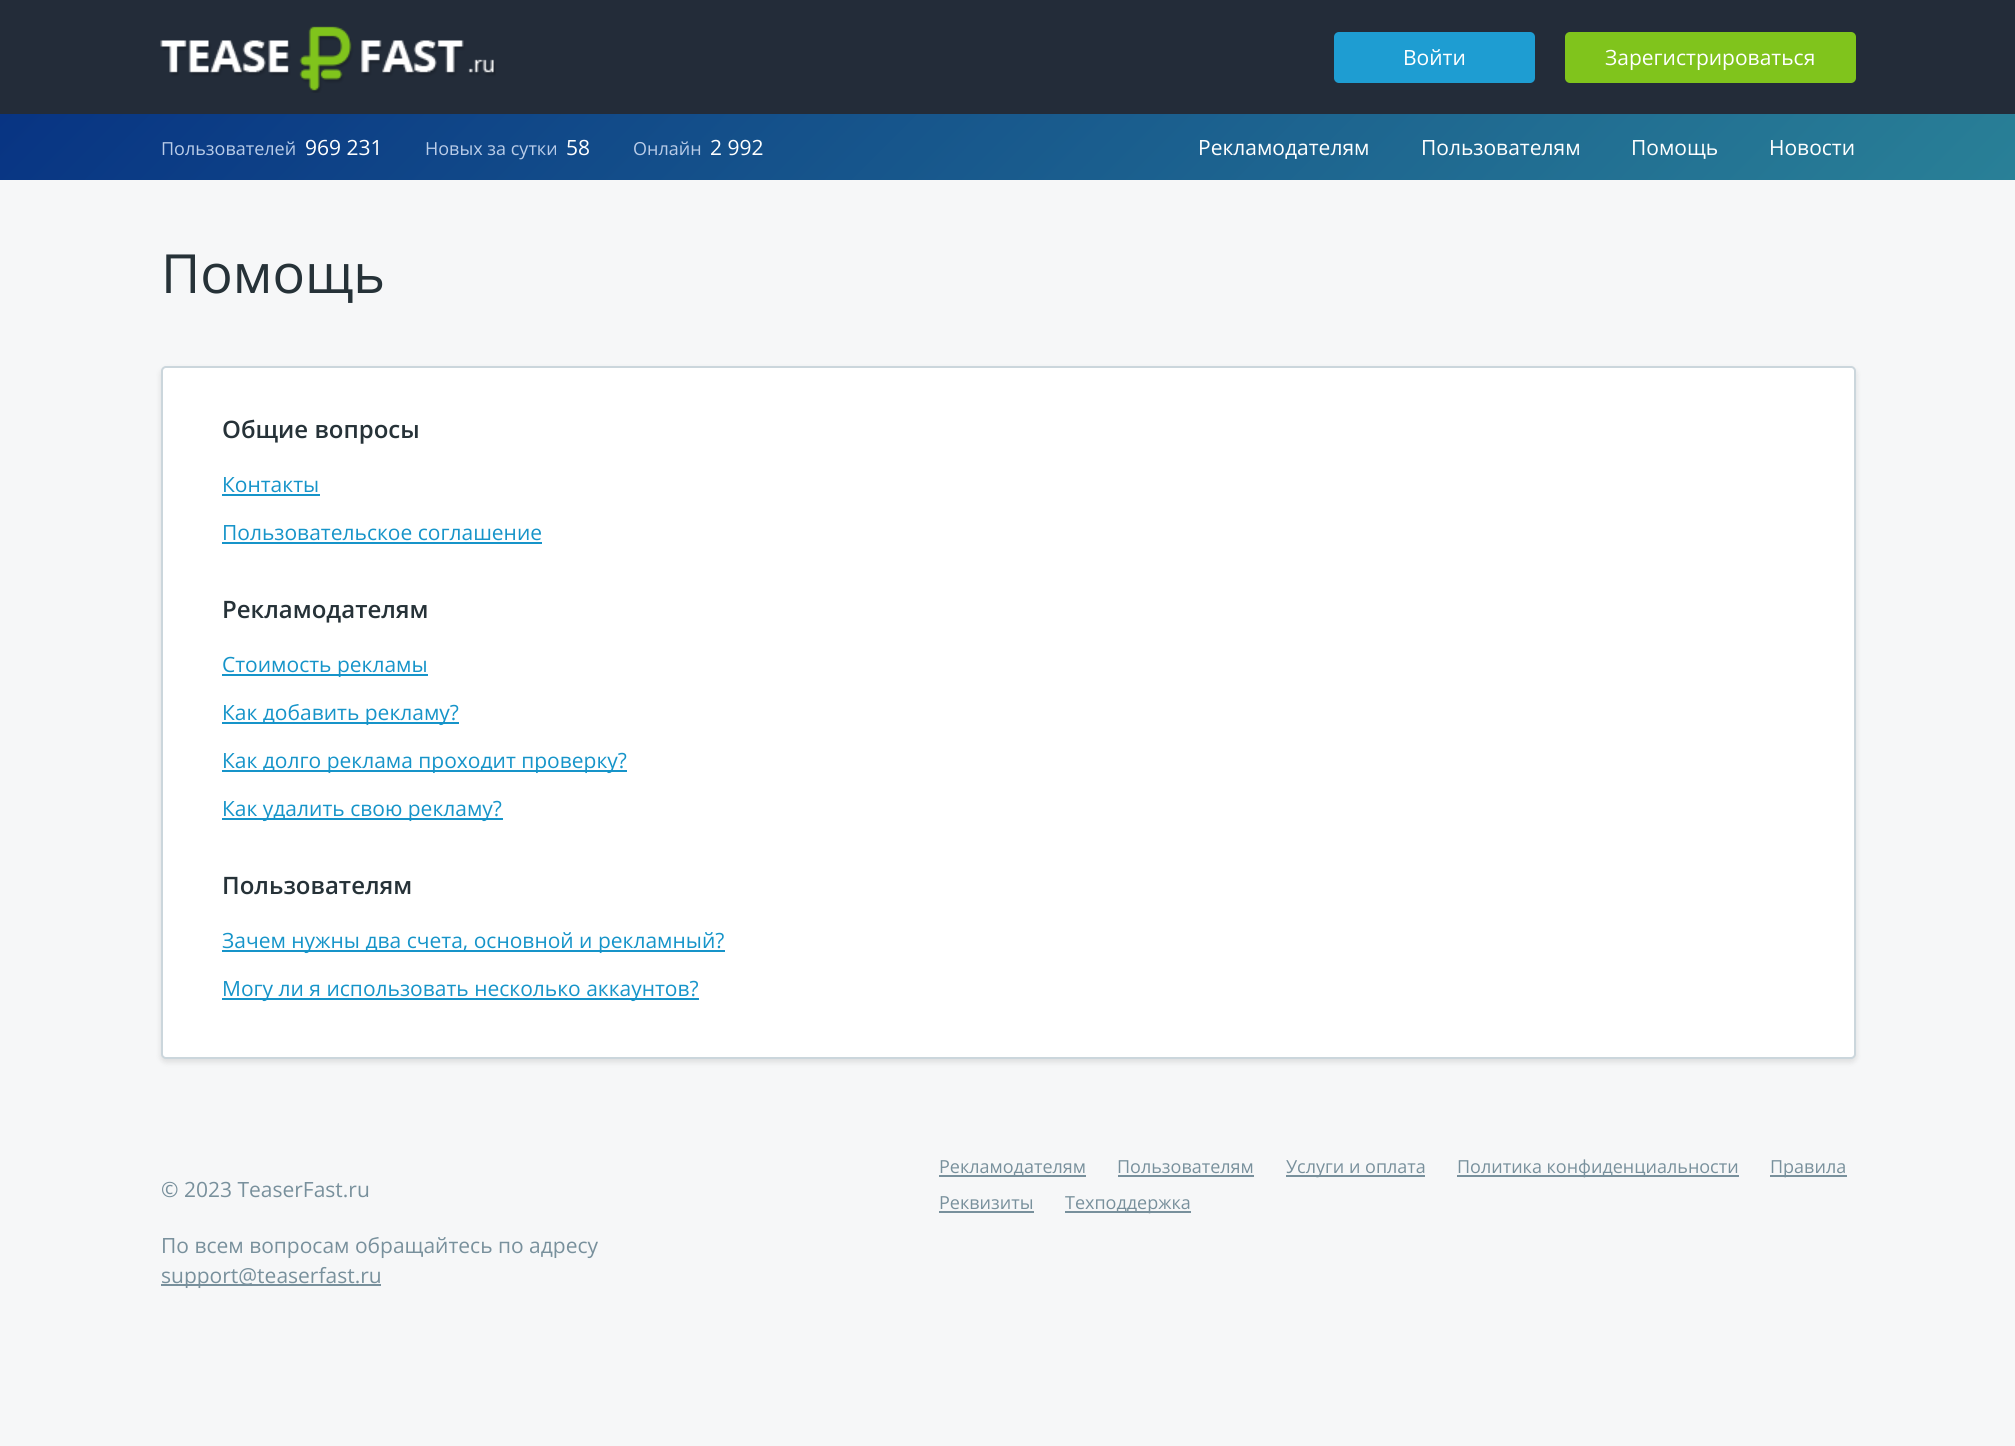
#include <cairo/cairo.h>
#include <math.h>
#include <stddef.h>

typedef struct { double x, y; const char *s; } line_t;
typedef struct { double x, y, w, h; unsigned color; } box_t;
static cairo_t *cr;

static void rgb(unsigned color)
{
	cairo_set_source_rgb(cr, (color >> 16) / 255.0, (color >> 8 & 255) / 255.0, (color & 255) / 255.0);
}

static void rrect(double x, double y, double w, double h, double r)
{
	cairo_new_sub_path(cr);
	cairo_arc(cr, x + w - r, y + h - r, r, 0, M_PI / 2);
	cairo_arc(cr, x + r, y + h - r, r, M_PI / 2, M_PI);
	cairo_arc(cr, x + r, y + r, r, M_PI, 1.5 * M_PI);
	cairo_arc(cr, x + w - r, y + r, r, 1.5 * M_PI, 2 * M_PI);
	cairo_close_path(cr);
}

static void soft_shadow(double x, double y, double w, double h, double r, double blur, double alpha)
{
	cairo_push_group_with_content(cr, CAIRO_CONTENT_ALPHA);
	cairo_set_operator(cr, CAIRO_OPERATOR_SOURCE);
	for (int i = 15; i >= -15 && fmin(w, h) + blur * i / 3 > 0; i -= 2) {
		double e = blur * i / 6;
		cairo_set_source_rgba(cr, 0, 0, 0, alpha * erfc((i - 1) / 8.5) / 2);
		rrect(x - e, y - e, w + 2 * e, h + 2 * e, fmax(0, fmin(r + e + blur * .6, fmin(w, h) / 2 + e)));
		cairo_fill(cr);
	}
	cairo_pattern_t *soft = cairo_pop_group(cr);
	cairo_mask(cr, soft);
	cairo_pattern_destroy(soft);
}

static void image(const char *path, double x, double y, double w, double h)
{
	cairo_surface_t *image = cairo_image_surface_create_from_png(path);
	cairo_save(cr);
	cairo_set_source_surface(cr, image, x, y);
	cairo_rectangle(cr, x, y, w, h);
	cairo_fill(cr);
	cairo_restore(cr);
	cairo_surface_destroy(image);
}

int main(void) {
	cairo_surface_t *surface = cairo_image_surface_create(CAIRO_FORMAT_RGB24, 2015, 1446);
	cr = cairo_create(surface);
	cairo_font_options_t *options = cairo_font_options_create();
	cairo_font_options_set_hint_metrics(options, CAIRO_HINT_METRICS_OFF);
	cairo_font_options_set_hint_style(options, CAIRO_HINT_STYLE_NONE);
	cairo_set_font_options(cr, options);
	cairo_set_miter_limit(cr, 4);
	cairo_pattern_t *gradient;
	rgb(0xf6f7f8);
	cairo_paint(cr);
	rgb(0x232c39);
	cairo_rectangle(cr, 0, 0, 2015, 114);
	cairo_fill(cr);
	image("img/1.png", 160, 26, 336, 67);
	rgb(0x1e9dd2);
	rrect(1334, 32, 201, 51, 5);
	cairo_fill(cr);
	rgb(0x80c41c);
	rrect(1565, 32, 291, 51, 5);
	cairo_fill(cr);
	gradient = cairo_pattern_create_linear(487, -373, 1529, 668);
	cairo_pattern_add_color_stop_rgba(gradient, 0, 0.031, 0.204, 0.514, 1);
	cairo_pattern_add_color_stop_rgba(gradient, 1, 0.161, 0.502, 0.592, 1);
	cairo_set_source(cr, gradient);
	cairo_pattern_destroy(gradient);
	cairo_rectangle(cr, 0, 114, 2015, 66);
	cairo_fill(cr);
	rgb(0x000000);
	soft_shadow(161, 369, 1695, 693, 5, 3, 0.11);
	rgb(0xffffff);
	rrect(162, 367, 1693, 691, 4);
	cairo_fill_preserve(cr);
	rgb(0xcbd6dc);
	cairo_stroke(cr);
	{
		static const box_t items[] = {
			{222, 494, 98, 2, 0x1694c9},
			{222, 542, 320, 2, 0x1694c9},
			{222, 674, 206, 2, 0x1694c9},
			{222, 722, 237, 2, 0x1694c9},
			{222, 770, 405, 2, 0x1694c9},
			{222, 818, 281, 2, 0x1694c9},
			{222, 950, 503, 2, 0x1694c9},
			{222, 998, 477, 2, 0x1694c9},
			{161, 1284, 220, 2, 0x78909c},
			{939, 1175, 147, 2, 0x78909c},
			{1118, 1175, 136, 2, 0x78909c},
			{1286, 1175, 139, 2, 0x78909c},
			{1457, 1175, 282, 2, 0x78909c},
			{1770, 1175, 77, 2, 0x78909c},
			{939, 1211, 95, 2, 0x78909c},
			{1065, 1211, 126, 2, 0x78909c},
		};
		for (size_t i = 0; i < sizeof items / sizeof *items; i++) {
			rgb(items[i].color);
			cairo_rectangle(cr, items[i].x, items[i].y, items[i].w, items[i].h);
			cairo_fill(cr);
		}
	}
	cairo_select_font_face(cr, "Open Sans", CAIRO_FONT_SLANT_NORMAL, CAIRO_FONT_WEIGHT_NORMAL);
	cairo_set_font_size(cr, 21);
	rgb(0xffffff);
	cairo_move_to(cr, 1403, 65);
	cairo_show_text(cr, "Войти");
	cairo_move_to(cr, 1605, 65);
	cairo_show_text(cr, "Зарегистрироваться");
	cairo_set_font_size(cr, 18);
	rgb(0xb9cce8);
	cairo_move_to(cr, 161, 155);
	cairo_show_text(cr, "Пользователей");
	cairo_set_font_size(cr, 21);
	rgb(0xffffff);
	cairo_move_to(cr, 305, 155);
	cairo_show_text(cr, "969 231");
	cairo_set_font_size(cr, 18);
	rgb(0xb9cce8);
	cairo_move_to(cr, 425, 155);
	cairo_show_text(cr, "Новых за сутки");
	cairo_set_font_size(cr, 21);
	rgb(0xffffff);
	cairo_move_to(cr, 566, 155);
	cairo_show_text(cr, "58");
	cairo_set_font_size(cr, 18);
	rgb(0xb9cce8);
	cairo_move_to(cr, 633, 155);
	cairo_show_text(cr, "Онлайн");
	cairo_set_font_size(cr, 21);
	rgb(0xffffff);
	{
		static const line_t items[] = {
			{710, 155, "2 992"},
			{1198, 155, "Рекламодателям"},
			{1421, 155, "Пользователям"},
			{1631, 155, "Помощь"},
			{1769, 155, "Новости"},
		};
		for (size_t i = 0; i < sizeof items / sizeof *items; i++) {
			cairo_move_to(cr, items[i].x, items[i].y);
			cairo_show_text(cr, items[i].s);
		}
	}
	cairo_set_font_size(cr, 54);
	rgb(0x263238);
	cairo_move_to(cr, 161, 293);
	cairo_show_text(cr, "Помощь");
	cairo_select_font_face(cr, "Open Sans SemiBold", CAIRO_FONT_SLANT_NORMAL, CAIRO_FONT_WEIGHT_NORMAL);
	cairo_set_font_size(cr, 24);
	cairo_move_to(cr, 222, 438);
	cairo_show_text(cr, "Общие вопросы");
	cairo_select_font_face(cr, "Open Sans", CAIRO_FONT_SLANT_NORMAL, CAIRO_FONT_WEIGHT_NORMAL);
	cairo_set_font_size(cr, 21);
	rgb(0x1694c9);
	cairo_move_to(cr, 222, 492);
	cairo_show_text(cr, "Контакты");
	cairo_move_to(cr, 222, 540);
	cairo_show_text(cr, "Пользовательское соглашение");
	cairo_select_font_face(cr, "Open Sans SemiBold", CAIRO_FONT_SLANT_NORMAL, CAIRO_FONT_WEIGHT_NORMAL);
	cairo_set_font_size(cr, 24);
	rgb(0x263238);
	cairo_move_to(cr, 222, 618);
	cairo_show_text(cr, "Рекламодателям");
	cairo_select_font_face(cr, "Open Sans", CAIRO_FONT_SLANT_NORMAL, CAIRO_FONT_WEIGHT_NORMAL);
	cairo_set_font_size(cr, 21);
	rgb(0x1694c9);
	{
		static const line_t items[] = {
			{222, 672, "Стоимость рекламы"},
			{222, 720, "Как добавить рекламу?"},
			{222, 768, "Как долго реклама проходит проверку?"},
			{222, 816, "Как удалить свою рекламу?"},
		};
		for (size_t i = 0; i < sizeof items / sizeof *items; i++) {
			cairo_move_to(cr, items[i].x, items[i].y);
			cairo_show_text(cr, items[i].s);
		}
	}
	cairo_select_font_face(cr, "Open Sans SemiBold", CAIRO_FONT_SLANT_NORMAL, CAIRO_FONT_WEIGHT_NORMAL);
	cairo_set_font_size(cr, 24);
	rgb(0x263238);
	cairo_move_to(cr, 222, 894);
	cairo_show_text(cr, "Пользователям");
	cairo_select_font_face(cr, "Open Sans", CAIRO_FONT_SLANT_NORMAL, CAIRO_FONT_WEIGHT_NORMAL);
	cairo_set_font_size(cr, 21);
	rgb(0x1694c9);
	cairo_move_to(cr, 222, 948);
	cairo_show_text(cr, "Зачем нужны два счета, основной и рекламный?");
	cairo_move_to(cr, 222, 996);
	cairo_show_text(cr, "Могу ли я использовать несколько аккаунтов?");
	rgb(0x78909c);
	{
		static const line_t items[] = {
			{161, 1197, "© 2023 TeaserFast.ru"},
			{161, 1253, "По всем вопросам обращайтесь по адресу"},
			{161, 1283, "support@teaserfast.ru"},
		};
		for (size_t i = 0; i < sizeof items / sizeof *items; i++) {
			cairo_move_to(cr, items[i].x, items[i].y);
			cairo_show_text(cr, items[i].s);
		}
	}
	cairo_set_font_size(cr, 18);
	{
		static const line_t items[] = {
			{939, 1173, "Рекламодателям"},
			{1117, 1173, "Пользователям"},
			{1286, 1173, "Услуги и оплата"},
			{1457, 1173, "Политика конфиденциальности"},
			{1770, 1173, "Правила"},
			{939, 1209, "Реквизиты"},
			{1065, 1209, "Техподдержка"},
		};
		for (size_t i = 0; i < sizeof items / sizeof *items; i++) {
			cairo_move_to(cr, items[i].x, items[i].y);
			cairo_show_text(cr, items[i].s);
		}
	}
	cairo_surface_write_to_png(surface, "page.png");
	cairo_font_options_destroy(options);
	cairo_destroy(cr);
	cairo_surface_destroy(surface);
	return 0;
}
